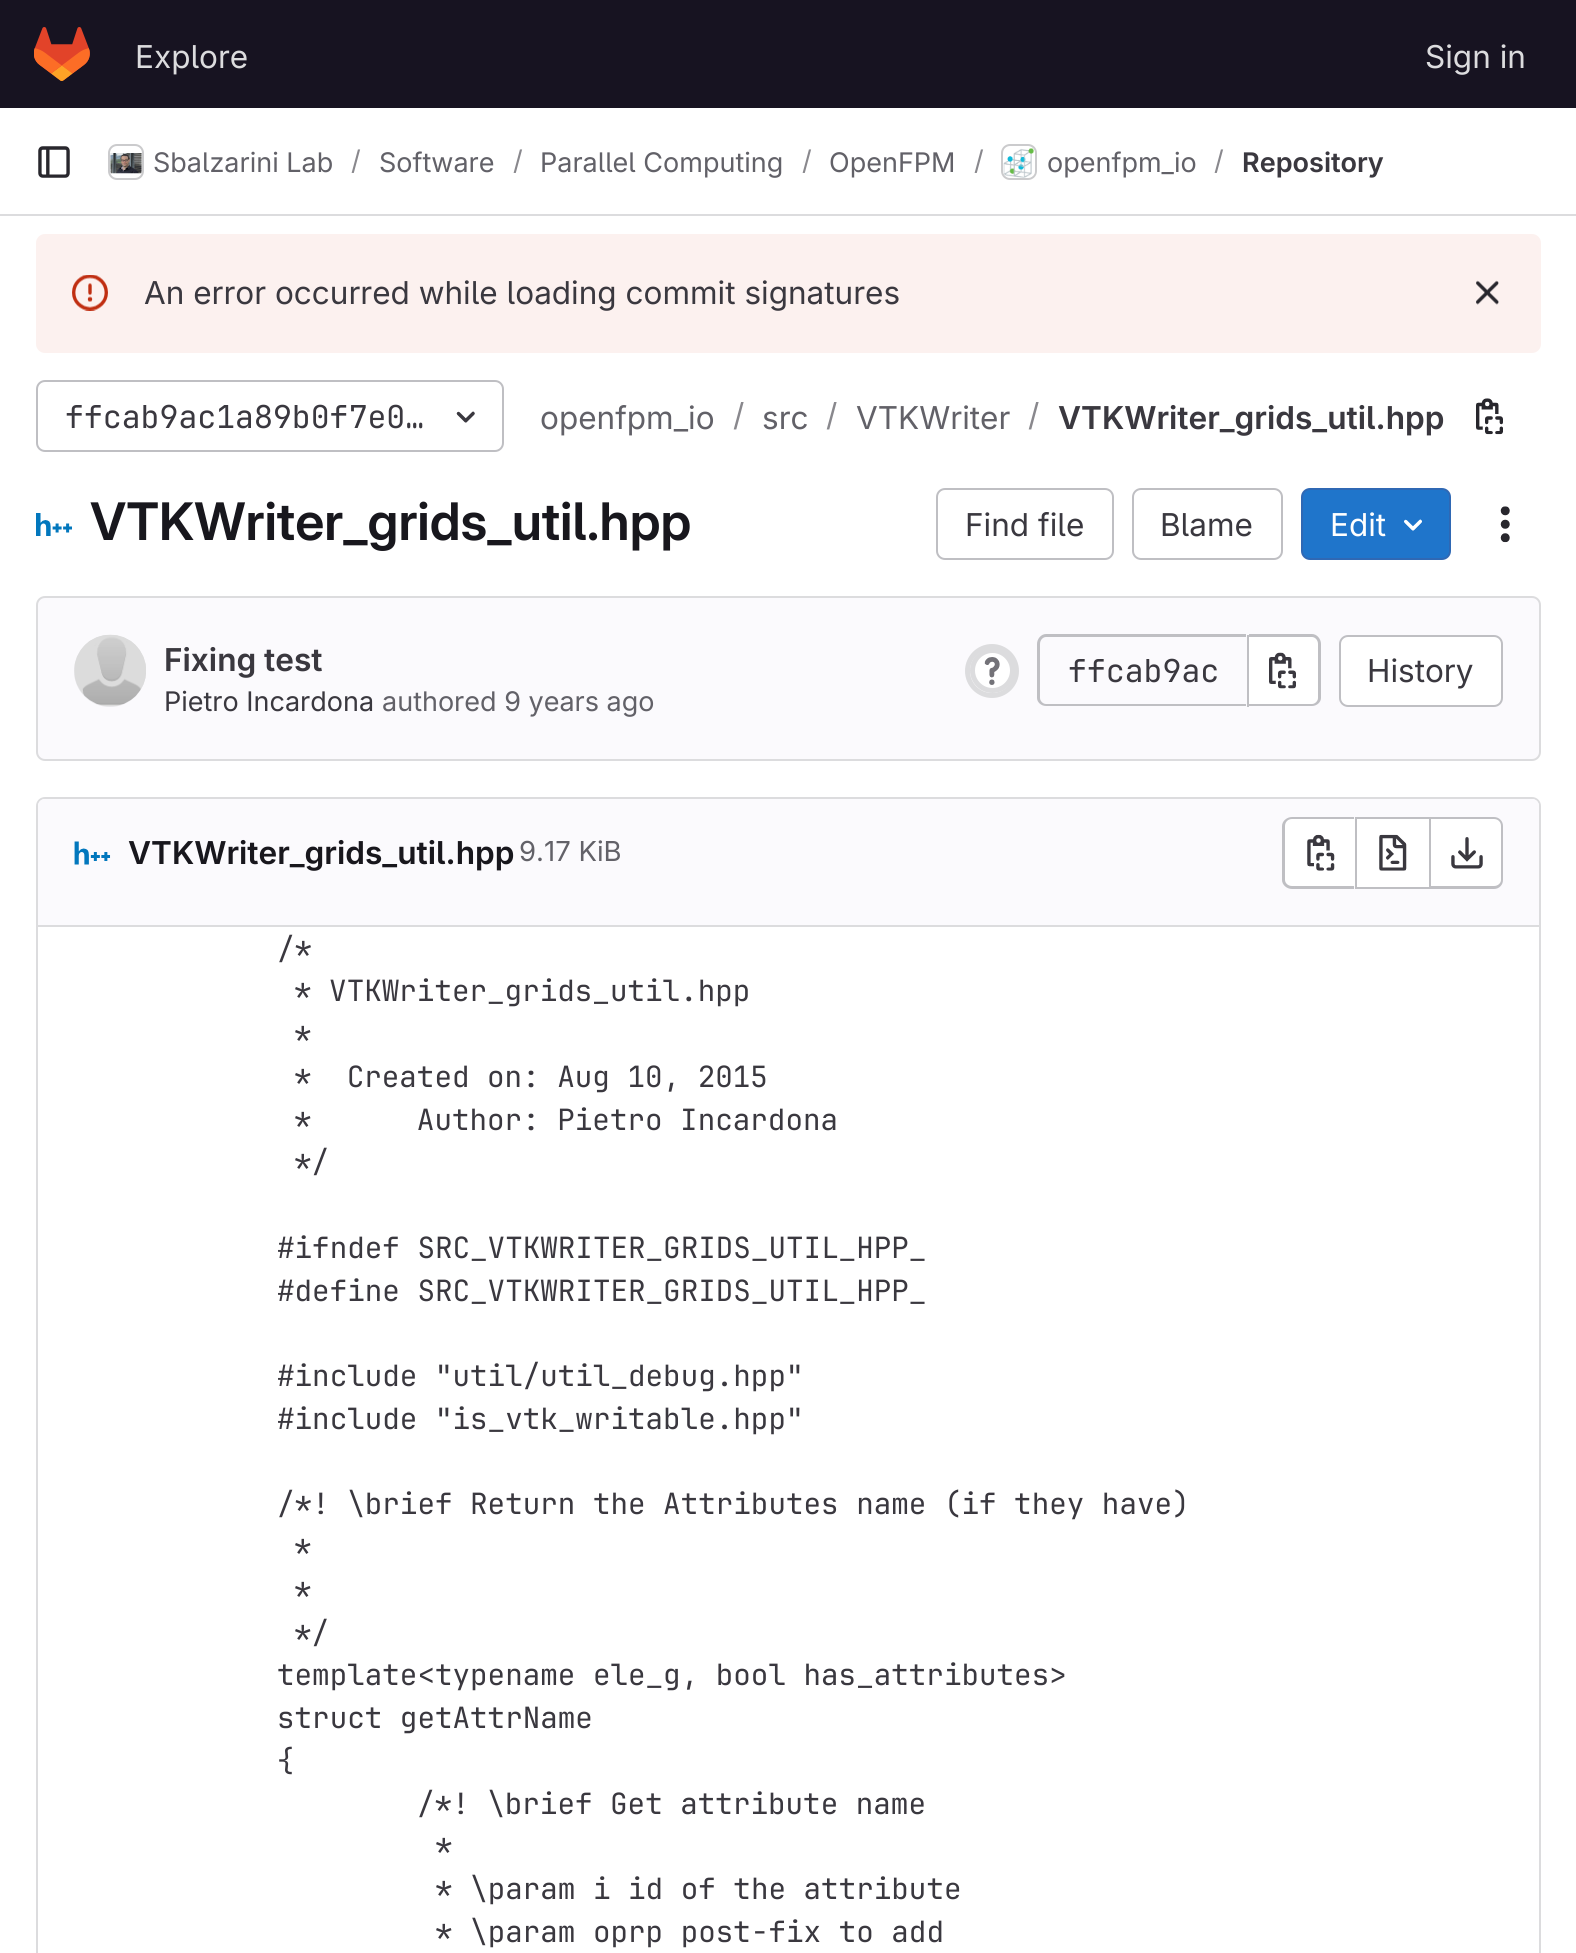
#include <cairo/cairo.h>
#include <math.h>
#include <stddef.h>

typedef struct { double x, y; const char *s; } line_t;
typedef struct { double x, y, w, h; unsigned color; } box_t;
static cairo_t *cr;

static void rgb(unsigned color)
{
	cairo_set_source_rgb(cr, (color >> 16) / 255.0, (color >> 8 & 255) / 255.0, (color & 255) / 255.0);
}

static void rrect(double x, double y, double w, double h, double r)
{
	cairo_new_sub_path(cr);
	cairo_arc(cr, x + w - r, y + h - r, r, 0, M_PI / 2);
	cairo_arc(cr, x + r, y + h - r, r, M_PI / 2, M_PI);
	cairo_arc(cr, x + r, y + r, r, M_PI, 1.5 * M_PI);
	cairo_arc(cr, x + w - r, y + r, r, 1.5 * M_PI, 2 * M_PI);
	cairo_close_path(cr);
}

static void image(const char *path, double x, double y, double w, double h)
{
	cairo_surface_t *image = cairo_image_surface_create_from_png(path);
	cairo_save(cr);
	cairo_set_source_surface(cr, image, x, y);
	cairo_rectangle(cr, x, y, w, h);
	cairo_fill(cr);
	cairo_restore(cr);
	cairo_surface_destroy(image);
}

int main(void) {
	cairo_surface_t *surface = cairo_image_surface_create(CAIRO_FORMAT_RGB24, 1576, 1953);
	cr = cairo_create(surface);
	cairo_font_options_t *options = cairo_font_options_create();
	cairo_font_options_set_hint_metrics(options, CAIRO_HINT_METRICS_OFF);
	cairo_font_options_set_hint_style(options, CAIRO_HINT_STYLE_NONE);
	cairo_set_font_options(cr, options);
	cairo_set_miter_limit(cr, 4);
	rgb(0xffffff);
	cairo_paint(cr);
	rgb(0x171321);
	cairo_rectangle(cr, 0, 0, 1576, 108);
	cairo_fill(cr);
	image("img/1.png", 34, 27, 56, 54);
	rgb(0xdcdcde);
	cairo_rectangle(cr, 0, 214, 1576, 2);
	cairo_fill(cr);
	image("img/2.png", 38, 146, 32, 32);
	rrect(109, 145, 34, 34, 8);
	cairo_stroke(cr);
	image("img/3.png", 110, 153, 32, 21);
	rrect(109, 145, 34, 34, 8);
	cairo_set_source_rgba(cr, 0.02, 0.02, 0.024, 0.08);
	cairo_stroke(cr);
	rrect(1002, 145, 34, 34, 8);
	rgb(0xdcdcde);
	cairo_stroke(cr);
	image("img/4.png", 1003, 148, 32, 30);
	rrect(1002, 145, 34, 34, 8);
	cairo_set_source_rgba(cr, 0.02, 0.02, 0.024, 0.08);
	cairo_stroke(cr);
	rgb(0xfcf1ef);
	rrect(36, 234, 1505, 119, 9);
	cairo_fill(cr);
	image("img/5.png", 72, 275, 36, 36);
	image("img/6.png", 1476, 280, 23, 25);
	rrect(37, 381, 466, 70, 8);
	rgb(0xbfbfc3);
	cairo_stroke(cr);
	image("img/7.png", 456, 411, 19, 12);
	image("img/8.png", 1476, 398, 27, 37);
	image("img/9.png", 36, 513, 36, 23);
	rrect(937, 489, 176, 70, 8);
	cairo_stroke(cr);
	rrect(1133, 489, 149, 70, 8);
	cairo_stroke(cr);
	rgb(0x1f75cb);
	rrect(1302, 489, 148, 70, 8);
	cairo_fill_preserve(cr);
	rgb(0x2f68b4);
	cairo_stroke(cr);
	image("img/10.png", 1404, 519, 18, 12);
	image("img/11.png", 1500, 506, 10, 37);
	rgb(0xfbfafd);
	rrect(37, 597, 1503, 163, 8);
	cairo_fill_preserve(cr);
	rgb(0xdcdcde);
	cairo_stroke(cr);
	cairo_arc(cr, 110, 671, 35, 0, 2 * M_PI);
	rgb(0xe7e6e9);
	cairo_stroke(cr);
	image("img/12.png", 74, 634, 72, 72);
	cairo_arc(cr, 992, 671, 24.5, 0, 2 * M_PI);
	rgb(0xdcdcde);
	cairo_set_line_width(cr, 5);
	cairo_stroke(cr);
	rgb(0xffffff);
	cairo_arc(cr, 992.5, 670.5, 20, 0, 2 * M_PI);
	cairo_fill_preserve(cr);
	rgb(0xdcdcde);
	cairo_stroke(cr);
	image("img/13.png", 984, 657, 16, 28);
	rgb(0xbfbfc3);
	cairo_set_fill_rule(cr, CAIRO_FILL_RULE_EVEN_ODD);
	cairo_new_path(cr);
	cairo_move_to(cr, 1046, 634);
	cairo_line_to(cr, 1246, 634);
	cairo_line_to(cr, 1246, 706);
	cairo_line_to(cr, 1046, 706);
	cairo_curve_to(cr, 1041, 706, 1037, 702, 1037, 698);
	cairo_line_to(cr, 1037, 644);
	cairo_curve_to(cr, 1037, 639, 1041, 634, 1046, 634);
	cairo_close_path(cr);
	cairo_move_to(cr, 1046, 637);
	cairo_line_to(cr, 1246, 637);
	cairo_line_to(cr, 1246, 704);
	cairo_line_to(cr, 1046, 704);
	cairo_curve_to(cr, 1043, 704, 1040, 701, 1040, 698);
	cairo_line_to(cr, 1040, 644);
	cairo_curve_to(cr, 1040, 640, 1043, 637, 1046, 637);
	cairo_close_path(cr);
	cairo_fill(cr);
	rgb(0xffffff);
	cairo_new_path(cr);
	cairo_move_to(cr, 1249, 637);
	cairo_line_to(cr, 1312, 637);
	cairo_curve_to(cr, 1316, 637, 1319, 640, 1319, 644);
	cairo_line_to(cr, 1319, 697);
	cairo_curve_to(cr, 1319, 701, 1316, 704, 1312, 704);
	cairo_line_to(cr, 1249, 704);
	cairo_close_path(cr);
	cairo_fill(cr);
	rgb(0xbfbfc3);
	cairo_new_path(cr);
	cairo_move_to(cr, 1249, 634);
	cairo_line_to(cr, 1312, 634);
	cairo_curve_to(cr, 1317, 634, 1321, 639, 1321, 644);
	cairo_line_to(cr, 1321, 698);
	cairo_curve_to(cr, 1321, 702, 1317, 706, 1312, 706);
	cairo_line_to(cr, 1249, 706);
	cairo_close_path(cr);
	cairo_move_to(cr, 1249, 637);
	cairo_line_to(cr, 1312, 637);
	cairo_curve_to(cr, 1315, 637, 1318, 640, 1318, 644);
	cairo_line_to(cr, 1318, 698);
	cairo_curve_to(cr, 1318, 701, 1315, 704, 1312, 704);
	cairo_line_to(cr, 1249, 704);
	cairo_close_path(cr);
	cairo_fill(cr);
	cairo_rectangle(cr, 1247, 635, 2, 72);
	cairo_fill(cr);
	image("img/14.png", 1269, 652, 27, 37);
	rgb(0xffffff);
	rrect(1340, 636, 162, 70, 8);
	cairo_fill_preserve(cr);
	rgb(0xbfbfc3);
	cairo_set_line_width(cr, 2);
	cairo_stroke(cr);
	rrect(37, 798, 1503, 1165, 8);
	rgb(0xdcdcde);
	cairo_stroke(cr);
	rgb(0xfbfafd);
	cairo_new_path(cr);
	cairo_move_to(cr, 45, 799);
	cairo_line_to(cr, 1532, 799);
	cairo_curve_to(cr, 1536, 799, 1539, 802, 1539, 806);
	cairo_line_to(cr, 1539, 927);
	cairo_line_to(cr, 38, 927);
	cairo_line_to(cr, 38, 806);
	cairo_curve_to(cr, 38, 802, 41, 799, 45, 799);
	cairo_close_path(cr);
	cairo_fill(cr);
	rgb(0xdcdcde);
	cairo_rectangle(cr, 38, 925, 1501, 2);
	cairo_fill(cr);
	image("img/15.png", 74, 841, 37, 24);
	rgb(0xffffff);
	cairo_new_path(cr);
	cairo_move_to(cr, 1292, 819);
	cairo_line_to(cr, 1355, 819);
	cairo_line_to(cr, 1355, 887);
	cairo_line_to(cr, 1292, 887);
	cairo_curve_to(cr, 1288, 887, 1285, 884, 1285, 880);
	cairo_line_to(cr, 1285, 826);
	cairo_curve_to(cr, 1285, 822, 1288, 819, 1292, 819);
	cairo_close_path(cr);
	cairo_fill(cr);
	rgb(0xbfbfc3);
	cairo_new_path(cr);
	cairo_move_to(cr, 1292, 817);
	cairo_line_to(cr, 1354, 817);
	cairo_line_to(cr, 1354, 889);
	cairo_line_to(cr, 1292, 889);
	cairo_curve_to(cr, 1287, 889, 1282, 885, 1282, 880);
	cairo_line_to(cr, 1282, 826);
	cairo_curve_to(cr, 1282, 821, 1287, 817, 1292, 817);
	cairo_close_path(cr);
	cairo_move_to(cr, 1292, 819);
	cairo_line_to(cr, 1354, 819);
	cairo_line_to(cr, 1354, 886);
	cairo_line_to(cr, 1292, 886);
	cairo_curve_to(cr, 1288, 886, 1285, 883, 1285, 880);
	cairo_line_to(cr, 1285, 826);
	cairo_curve_to(cr, 1285, 822, 1288, 819, 1292, 819);
	cairo_close_path(cr);
	cairo_fill(cr);
	image("img/16.png", 1307, 834, 28, 37);
	{
		static const box_t items[] = {
			{1357, 819, 72, 68, 0xffffff},
			{1357, 817, 72, 2, 0xbfbfc3},
			{1357, 887, 72, 2, 0xbfbfc3},
			{1355, 817, 2, 72, 0xbfbfc3},
		};
		for (size_t i = 0; i < sizeof items / sizeof *items; i++) {
			rgb(items[i].color);
			cairo_rectangle(cr, items[i].x, items[i].y, items[i].w, items[i].h);
			cairo_fill(cr);
		}
	}
	image("img/17.png", 1379, 834, 28, 37);
	rgb(0xffffff);
	cairo_new_path(cr);
	cairo_move_to(cr, 1431, 819);
	cairo_line_to(cr, 1494, 819);
	cairo_curve_to(cr, 1498, 819, 1501, 822, 1501, 826);
	cairo_line_to(cr, 1501, 880);
	cairo_curve_to(cr, 1501, 884, 1498, 887, 1494, 887);
	cairo_line_to(cr, 1431, 887);
	cairo_close_path(cr);
	cairo_fill(cr);
	rgb(0xbfbfc3);
	cairo_new_path(cr);
	cairo_move_to(cr, 1431, 817);
	cairo_line_to(cr, 1494, 817);
	cairo_curve_to(cr, 1499, 817, 1503, 821, 1503, 826);
	cairo_line_to(cr, 1503, 880);
	cairo_curve_to(cr, 1503, 885, 1499, 889, 1494, 889);
	cairo_line_to(cr, 1431, 889);
	cairo_close_path(cr);
	cairo_move_to(cr, 1431, 819);
	cairo_line_to(cr, 1494, 819);
	cairo_curve_to(cr, 1498, 819, 1501, 822, 1501, 826);
	cairo_line_to(cr, 1501, 880);
	cairo_curve_to(cr, 1501, 883, 1498, 886, 1494, 886);
	cairo_line_to(cr, 1431, 886);
	cairo_close_path(cr);
	cairo_fill(cr);
	cairo_rectangle(cr, 1429, 817, 2, 72);
	cairo_fill(cr);
	image("img/18.png", 1451, 837, 32, 32);
	cairo_select_font_face(cr, "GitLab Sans", CAIRO_FONT_SLANT_NORMAL, CAIRO_FONT_WEIGHT_NORMAL);
	cairo_set_font_size(cr, 31.5);
	rgb(0xdcdcde);
	cairo_move_to(cr, 135, 68);
	cairo_show_text(cr, "Explore");
	cairo_move_to(cr, 1425, 68);
	cairo_show_text(cr, "Sign in");
	cairo_set_font_size(cr, 27);
	rgb(0x626168);
	cairo_move_to(cr, 153, 172);
	cairo_show_text(cr, "Sbalzarini Lab");
	rgb(0x89888d);
	cairo_move_to(cr, 351, 170);
	cairo_show_text(cr, "/");
	rgb(0x626168);
	cairo_move_to(cr, 379, 172);
	cairo_show_text(cr, "Software");
	rgb(0x89888d);
	cairo_move_to(cr, 513, 170);
	cairo_show_text(cr, "/");
	rgb(0x626168);
	cairo_move_to(cr, 540, 172);
	cairo_show_text(cr, "Parallel Computing");
	rgb(0x89888d);
	cairo_move_to(cr, 802, 170);
	cairo_show_text(cr, "/");
	rgb(0x626168);
	cairo_move_to(cr, 829, 172);
	cairo_show_text(cr, "OpenFPM");
	rgb(0x89888d);
	cairo_move_to(cr, 974, 170);
	cairo_show_text(cr, "/");
	rgb(0x626168);
	cairo_move_to(cr, 1047, 172);
	cairo_show_text(cr, "openfpm_io");
	rgb(0x89888d);
	cairo_move_to(cr, 1214, 170);
	cairo_show_text(cr, "/");
	cairo_select_font_face(cr, "GitLab Sans SemiBold", CAIRO_FONT_SLANT_NORMAL, CAIRO_FONT_WEIGHT_NORMAL);
	rgb(0x3a383f);
	cairo_move_to(cr, 1242, 172);
	cairo_show_text(cr, "Repository");
	cairo_select_font_face(cr, "GitLab Sans", CAIRO_FONT_SLANT_NORMAL, CAIRO_FONT_WEIGHT_NORMAL);
	cairo_set_font_size(cr, 31.5);
	cairo_move_to(cr, 144, 304);
	cairo_show_text(cr, "An error occurred while loading commit signatures");
	cairo_select_font_face(cr, "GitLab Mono", CAIRO_FONT_SLANT_NORMAL, CAIRO_FONT_WEIGHT_NORMAL);
	cairo_move_to(cr, 65, 428);
	cairo_show_text(cr, "ffcab9ac1a89b0f7e0…");
	cairo_select_font_face(cr, "GitLab Sans", CAIRO_FONT_SLANT_NORMAL, CAIRO_FONT_WEIGHT_NORMAL);
	rgb(0x626168);
	cairo_move_to(cr, 540, 429);
	cairo_show_text(cr, "openfpm_io");
	rgb(0x89888d);
	cairo_move_to(cr, 733, 426);
	cairo_show_text(cr, "/");
	rgb(0x626168);
	cairo_move_to(cr, 762, 429);
	cairo_show_text(cr, "src");
	rgb(0x89888d);
	cairo_move_to(cr, 826, 426);
	cairo_show_text(cr, "/");
	rgb(0x626168);
	cairo_move_to(cr, 856, 429);
	cairo_show_text(cr, "VTKWriter");
	rgb(0x89888d);
	cairo_move_to(cr, 1028, 426);
	cairo_show_text(cr, "/");
	cairo_select_font_face(cr, "GitLab Sans SemiBold", CAIRO_FONT_SLANT_NORMAL, CAIRO_FONT_WEIGHT_NORMAL);
	rgb(0x3a383f);
	cairo_move_to(cr, 1058, 429);
	cairo_show_text(cr, "VTKWriter_grids_util.hpp");
	cairo_select_font_face(cr, "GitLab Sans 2 SemiBold", CAIRO_FONT_SLANT_NORMAL, CAIRO_FONT_WEIGHT_NORMAL);
	cairo_set_font_size(cr, 51.75);
	rgb(0x18171d);
	cairo_move_to(cr, 90, 540);
	cairo_show_text(cr, "VTKWriter_grids_util.hpp");
	cairo_select_font_face(cr, "GitLab Sans", CAIRO_FONT_SLANT_NORMAL, CAIRO_FONT_WEIGHT_NORMAL);
	cairo_set_font_size(cr, 31.5);
	rgb(0x3a383f);
	cairo_move_to(cr, 965, 536);
	cairo_show_text(cr, "Find file");
	cairo_move_to(cr, 1160, 536);
	cairo_show_text(cr, "Blame");
	rgb(0xffffff);
	cairo_move_to(cr, 1330, 536);
	cairo_show_text(cr, "Edit");
	cairo_select_font_face(cr, "GitLab Sans SemiBold", CAIRO_FONT_SLANT_NORMAL, CAIRO_FONT_WEIGHT_NORMAL);
	rgb(0x3a383f);
	cairo_move_to(cr, 164, 671);
	cairo_show_text(cr, "Fixing test");
	cairo_select_font_face(cr, "GitLab Sans", CAIRO_FONT_SLANT_NORMAL, CAIRO_FONT_WEIGHT_NORMAL);
	cairo_set_font_size(cr, 27);
	cairo_move_to(cr, 164, 711);
	cairo_show_text(cr, "Pietro Incardona");
	rgb(0x626168);
	cairo_move_to(cr, 382, 711);
	cairo_show_text(cr, "authored 9 years ago");
	cairo_select_font_face(cr, "GitLab Mono", CAIRO_FONT_SLANT_NORMAL, CAIRO_FONT_WEIGHT_NORMAL);
	cairo_set_font_size(cr, 31.5);
	rgb(0x3a383f);
	cairo_move_to(cr, 1068, 682);
	cairo_show_text(cr, "ffcab9ac");
	cairo_select_font_face(cr, "GitLab Sans", CAIRO_FONT_SLANT_NORMAL, CAIRO_FONT_WEIGHT_NORMAL);
	cairo_move_to(cr, 1367, 682);
	cairo_show_text(cr, "History");
	cairo_select_font_face(cr, "GitLab Sans SemiBold", CAIRO_FONT_SLANT_NORMAL, CAIRO_FONT_WEIGHT_NORMAL);
	rgb(0x18171d);
	cairo_move_to(cr, 128, 864);
	cairo_show_text(cr, "VTKWriter_grids_util.hpp");
	cairo_select_font_face(cr, "GitLab Sans", CAIRO_FONT_SLANT_NORMAL, CAIRO_FONT_WEIGHT_NORMAL);
	cairo_set_font_size(cr, 27.5);
	rgb(0x626168);
	cairo_move_to(cr, 519, 861);
	cairo_show_text(cr, "9.17 KiB");
	cairo_select_font_face(cr, "GitLab Mono", CAIRO_FONT_SLANT_NORMAL, CAIRO_FONT_WEIGHT_NORMAL);
	cairo_set_font_size(cr, 29.25);
	rgb(0x3a383f);
	{
		static const line_t items[] = {
			{277, 959, "/*"},
			{294, 1001, "* VTKWriter_grids_util.hpp"},
			{294, 1044, "*"},
			{294, 1087, "*  Created on: Aug 10, 2015"},
			{294, 1130, "*      Author: Pietro Incardona"},
			{294, 1172, "*/"},
			{277, 1258, "#ifndef SRC_VTKWRITER_GRIDS_UTIL_HPP_"},
			{277, 1301, "#define SRC_VTKWRITER_GRIDS_UTIL_HPP_"},
			{277, 1386, "#include \"util/util_debug.hpp\""},
			{277, 1429, "#include \"is_vtk_writable.hpp\""},
			{277, 1514, "/*! \\brief Return the Attributes name (if they have)"},
			{294, 1557, "*"},
			{294, 1600, "*"},
			{294, 1643, "*/"},
			{277, 1685, "template<typename ele_g, bool has_attributes>"},
			{277, 1728, "struct getAttrName"},
			{277, 1771, "{"},
			{417, 1814, "/*! \\brief Get attribute name"},
			{435, 1856, "*"},
			{435, 1899, "* \\param i id of the attribute"},
			{435, 1942, "* \\param oprp post-fix to add"},
		};
		for (size_t i = 0; i < sizeof items / sizeof *items; i++) {
			cairo_move_to(cr, items[i].x, items[i].y);
			cairo_show_text(cr, items[i].s);
		}
	}
	cairo_surface_write_to_png(surface, "page.png");
	cairo_font_options_destroy(options);
	cairo_destroy(cr);
	cairo_surface_destroy(surface);
	return 0;
}
